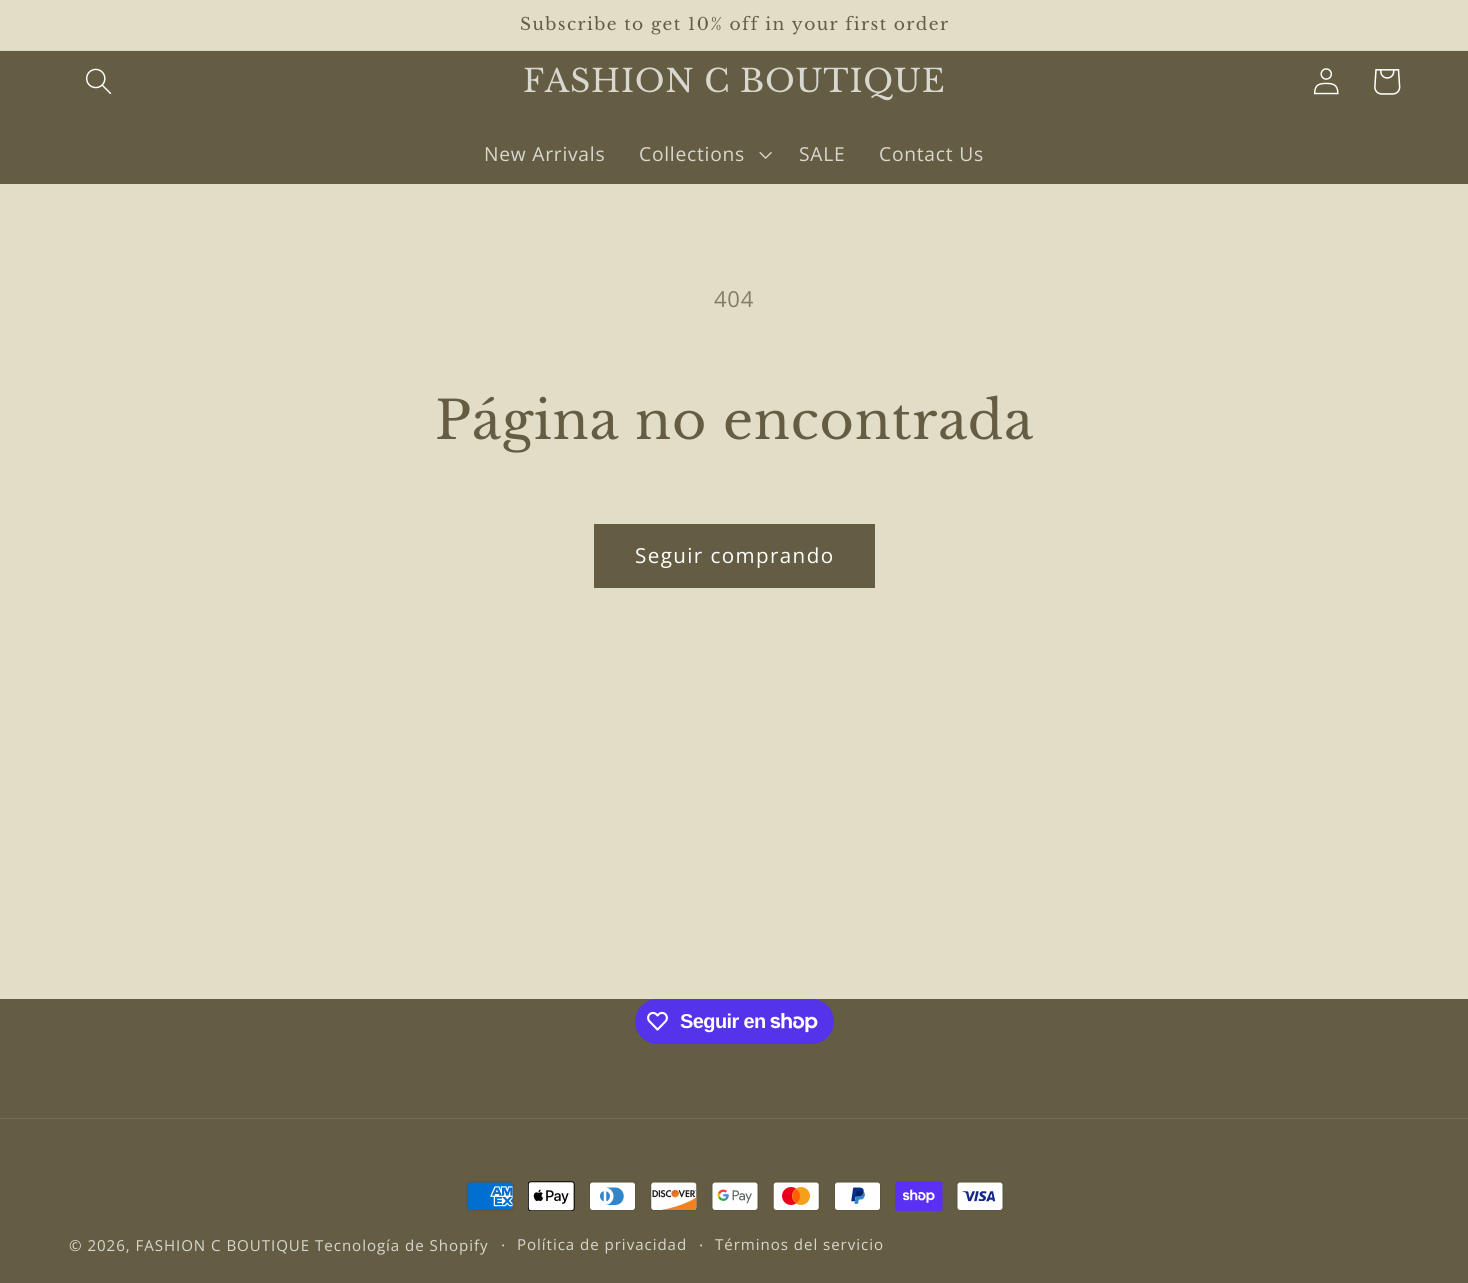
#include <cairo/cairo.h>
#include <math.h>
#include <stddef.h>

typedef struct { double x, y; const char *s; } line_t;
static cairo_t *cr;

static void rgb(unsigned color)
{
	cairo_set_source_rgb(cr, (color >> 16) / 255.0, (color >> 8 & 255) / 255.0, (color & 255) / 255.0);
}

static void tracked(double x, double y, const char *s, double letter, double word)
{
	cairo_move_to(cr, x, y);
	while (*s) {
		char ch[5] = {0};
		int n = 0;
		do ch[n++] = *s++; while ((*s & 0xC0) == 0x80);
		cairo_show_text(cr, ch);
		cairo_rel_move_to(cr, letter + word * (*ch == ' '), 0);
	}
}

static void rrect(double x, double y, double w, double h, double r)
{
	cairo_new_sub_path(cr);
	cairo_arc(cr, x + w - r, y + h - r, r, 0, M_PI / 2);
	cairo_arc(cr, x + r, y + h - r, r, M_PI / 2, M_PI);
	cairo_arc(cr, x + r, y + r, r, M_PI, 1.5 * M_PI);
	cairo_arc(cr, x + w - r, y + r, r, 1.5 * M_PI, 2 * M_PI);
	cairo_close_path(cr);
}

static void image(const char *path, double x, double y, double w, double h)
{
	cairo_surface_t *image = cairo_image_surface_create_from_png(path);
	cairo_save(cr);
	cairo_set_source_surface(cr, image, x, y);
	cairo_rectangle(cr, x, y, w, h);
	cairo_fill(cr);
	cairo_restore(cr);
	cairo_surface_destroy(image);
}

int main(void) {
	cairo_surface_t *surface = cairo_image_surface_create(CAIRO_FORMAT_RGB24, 1468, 1283);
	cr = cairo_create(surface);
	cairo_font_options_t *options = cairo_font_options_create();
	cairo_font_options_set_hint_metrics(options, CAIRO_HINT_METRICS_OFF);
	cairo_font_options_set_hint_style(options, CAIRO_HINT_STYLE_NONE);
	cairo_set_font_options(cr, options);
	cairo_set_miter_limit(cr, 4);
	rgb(0xe2ddc6);
	cairo_paint(cr);
	rgb(0xd8d3bc);
	cairo_rectangle(cr, 0, 50, 1468, 1);
	cairo_fill(cr);
	rgb(0x645d43);
	cairo_rectangle(cr, 0, 51, 1468, 133);
	cairo_fill(cr);
	image("img/1.png", 85, 68, 27, 27);
	image("img/2.png", 1313, 68, 26, 27);
	image("img/3.png", 1374, 69, 27, 26);
	image("img/4.png", 759, 152, 13, 7);
	cairo_rectangle(cr, 594, 524, 281, 64);
	cairo_fill(cr);
	cairo_rectangle(cr, 0, 999, 1468, 284);
	cairo_fill(cr);
	rgb(0x5433eb);
	rrect(635, 999, 199, 45, 22.5);
	cairo_fill(cr);
	image("img/5.png", 647, 1011, 21, 20);
	image("img/6.png", 770, 1013, 48, 20);
	rgb(0x706a52);
	cairo_rectangle(cr, 0, 1118, 1468, 1);
	cairo_fill(cr);
	image("img/7.png", 466, 1181, 48, 30);
	image("img/8.png", 528, 1181, 47, 30);
	image("img/9.png", 589, 1181, 47, 30);
	image("img/10.png", 650, 1181, 47, 30);
	image("img/11.png", 711, 1181, 48, 30);
	image("img/12.png", 773, 1181, 47, 30);
	image("img/13.png", 834, 1181, 47, 30);
	image("img/14.png", 895, 1181, 48, 30);
	image("img/15.png", 956, 1181, 48, 30);
	cairo_select_font_face(cr, "Libre Baskerville", CAIRO_FONT_SLANT_NORMAL, CAIRO_FONT_WEIGHT_NORMAL);
	cairo_set_font_size(cr, 17.05);
	rgb(0x645d43);
	tracked(520, 30, "Subscribe to get 10% off in your first order", 1.4, 0);
	cairo_set_font_size(cr, 31.5);
	rgb(0xd8d7d0);
	tracked(523, 92, "FASHION C BOUTIQUE", 0.75, 0);
	cairo_select_font_face(cr, "Open Sans", CAIRO_FONT_SLANT_NORMAL, CAIRO_FONT_WEIGHT_NORMAL);
	cairo_set_font_size(cr, 19.25);
	{
		static const line_t items[] = {
			{484, 161, "New Arrivals"},
			{639, 161, "Collections"},
			{799, 161, "SALE"},
			{879, 161, "Contact Us"},
		};
		for (size_t i = 0; i < sizeof items / sizeof *items; i++) {
			tracked(items[i].x, items[i].y, items[i].s, 0.75, 0);
		}
	}
	cairo_set_font_size(cr, 22);
	rgb(0x847d64);
	tracked(714, 307, "404", 0.75, 0);
	cairo_select_font_face(cr, "Libre Baskerville", CAIRO_FONT_SLANT_NORMAL, CAIRO_FONT_WEIGHT_NORMAL);
	cairo_set_font_size(cr, 52.5);
	rgb(0x645d43);
	tracked(435, 439, "Página no encontrada", 0.75, 0);
	cairo_select_font_face(cr, "Open Sans", CAIRO_FONT_SLANT_NORMAL, CAIRO_FONT_WEIGHT_NORMAL);
	cairo_set_font_size(cr, 20.6);
	rgb(0xffffff);
	tracked(635, 563, "Seguir comprando", 1.4, 0);
	cairo_select_font_face(cr, "Liberation Sans", CAIRO_FONT_SLANT_NORMAL, CAIRO_FONT_WEIGHT_BOLD);
	cairo_set_font_size(cr, 20);
	tracked(680, 1028, "Seguir en", -0.6, 0);
	cairo_select_font_face(cr, "Open Sans", CAIRO_FONT_SLANT_NORMAL, CAIRO_FONT_WEIGHT_NORMAL);
	cairo_set_font_size(cr, 15.1);
	rgb(0xd8d7d0);
	tracked(69, 1251, "© 2026, FASHION C BOUTIQUE Tecnología de Shopify", 0.95, 0);
	cairo_set_font_size(cr, 16);
	tracked(501, 1251, "·", 0.95, 0);
	cairo_set_font_size(cr, 15.1);
	tracked(517, 1250, "Política de privacidad", 0.95, 0);
	cairo_set_font_size(cr, 16);
	tracked(699, 1251, "·", 0.95, 0);
	cairo_set_font_size(cr, 15.1);
	tracked(715, 1250, "Términos del servicio", 0.95, 0);
	cairo_surface_write_to_png(surface, "page.png");
	cairo_font_options_destroy(options);
	cairo_destroy(cr);
	cairo_surface_destroy(surface);
	return 0;
}
